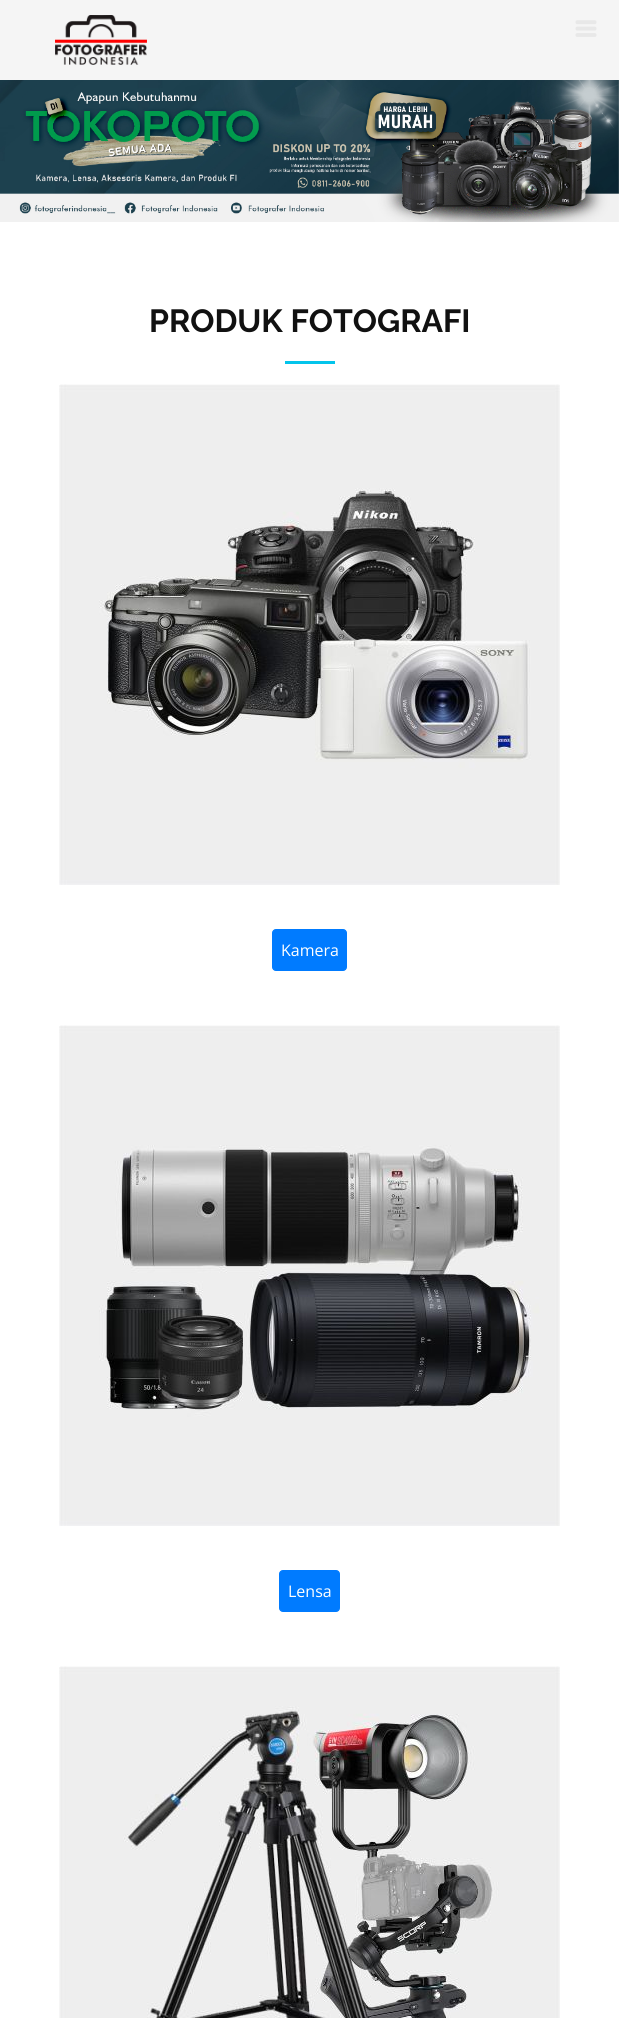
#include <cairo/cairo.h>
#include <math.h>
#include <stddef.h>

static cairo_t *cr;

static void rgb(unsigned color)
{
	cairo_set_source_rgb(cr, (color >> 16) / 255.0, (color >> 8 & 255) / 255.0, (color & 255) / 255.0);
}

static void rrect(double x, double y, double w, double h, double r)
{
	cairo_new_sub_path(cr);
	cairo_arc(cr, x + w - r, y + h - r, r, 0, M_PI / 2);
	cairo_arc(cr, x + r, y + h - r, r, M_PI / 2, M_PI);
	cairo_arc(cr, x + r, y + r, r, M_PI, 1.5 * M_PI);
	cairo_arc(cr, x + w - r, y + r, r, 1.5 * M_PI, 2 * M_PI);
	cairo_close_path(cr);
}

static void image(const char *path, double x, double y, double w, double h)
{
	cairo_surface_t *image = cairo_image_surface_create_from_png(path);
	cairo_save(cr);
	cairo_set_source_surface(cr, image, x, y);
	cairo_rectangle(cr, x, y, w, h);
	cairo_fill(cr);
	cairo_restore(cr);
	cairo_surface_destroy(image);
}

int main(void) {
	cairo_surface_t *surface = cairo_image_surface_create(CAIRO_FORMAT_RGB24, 619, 2018);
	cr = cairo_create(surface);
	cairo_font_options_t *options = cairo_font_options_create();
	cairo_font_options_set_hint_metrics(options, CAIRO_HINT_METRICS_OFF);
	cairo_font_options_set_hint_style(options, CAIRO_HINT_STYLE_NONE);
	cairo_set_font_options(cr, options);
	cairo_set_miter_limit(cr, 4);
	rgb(0xffffff);
	cairo_paint(cr);
	rgb(0xf5f5f5);
	cairo_rectangle(cr, 0, 0, 619, 80);
	cairo_fill(cr);
	image("img/1.png", 55, 15, 92, 50);
	image("img/2.png", 575, 20, 22, 17);
	image("img/3.png", 0, 80, 619, 142);
	rgb(0x03c4eb);
	cairo_rectangle(cr, 285, 361, 50, 3);
	cairo_fill(cr);
	image("img/4.png", 59, 384, 501, 501);
	rgb(0x007bff);
	rrect(272.5, 929.5, 74, 41, 3.5);
	cairo_fill_preserve(cr);
	cairo_set_line_width(cr, 1);
	cairo_stroke(cr);
	image("img/5.png", 59, 1025, 501, 501);
	rrect(279.5, 1570.5, 60, 41, 3.5);
	cairo_fill_preserve(cr);
	cairo_stroke(cr);
	image("img/6.png", 59, 1666, 501, 352);
	cairo_select_font_face(cr, "Raleway", CAIRO_FONT_SLANT_NORMAL, CAIRO_FONT_WEIGHT_BOLD);
	cairo_set_font_size(cr, 32);
	rgb(0x111111);
	cairo_move_to(cr, 149, 332);
	cairo_show_text(cr, "PRODUK FOTOGRAFI");
	cairo_select_font_face(cr, "Open Sans", CAIRO_FONT_SLANT_NORMAL, CAIRO_FONT_WEIGHT_NORMAL);
	cairo_set_font_size(cr, 16);
	rgb(0xffffff);
	cairo_move_to(cr, 281, 956);
	cairo_show_text(cr, "Kamera");
	cairo_move_to(cr, 288, 1597);
	cairo_show_text(cr, "Lensa");
	cairo_surface_write_to_png(surface, "page.png");
	cairo_font_options_destroy(options);
	cairo_destroy(cr);
	cairo_surface_destroy(surface);
	return 0;
}
